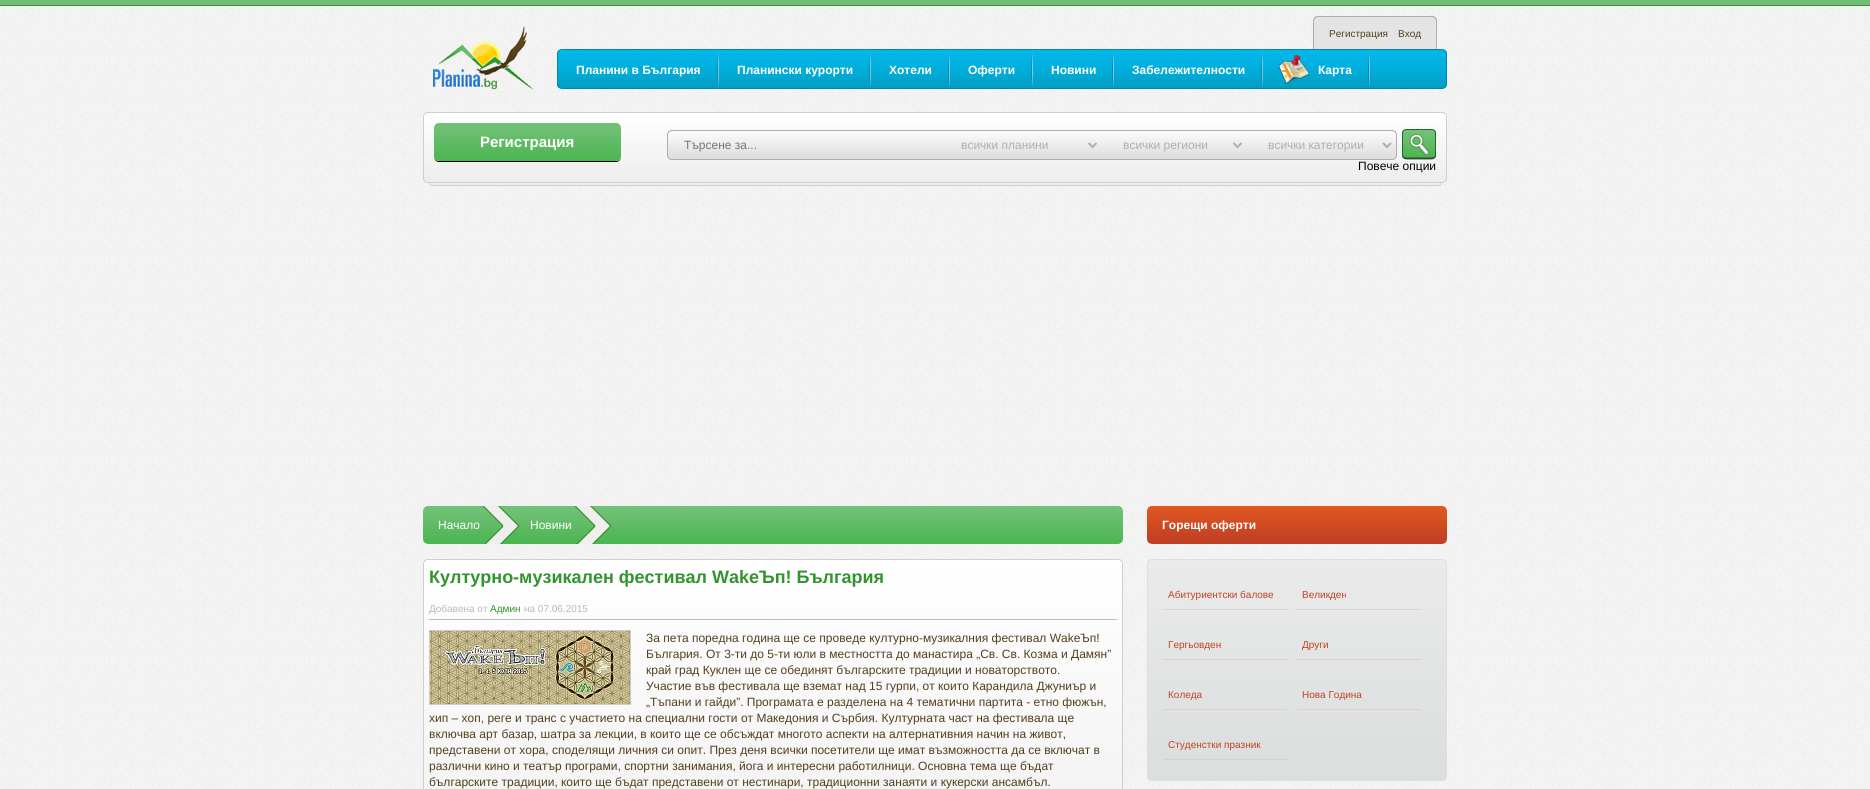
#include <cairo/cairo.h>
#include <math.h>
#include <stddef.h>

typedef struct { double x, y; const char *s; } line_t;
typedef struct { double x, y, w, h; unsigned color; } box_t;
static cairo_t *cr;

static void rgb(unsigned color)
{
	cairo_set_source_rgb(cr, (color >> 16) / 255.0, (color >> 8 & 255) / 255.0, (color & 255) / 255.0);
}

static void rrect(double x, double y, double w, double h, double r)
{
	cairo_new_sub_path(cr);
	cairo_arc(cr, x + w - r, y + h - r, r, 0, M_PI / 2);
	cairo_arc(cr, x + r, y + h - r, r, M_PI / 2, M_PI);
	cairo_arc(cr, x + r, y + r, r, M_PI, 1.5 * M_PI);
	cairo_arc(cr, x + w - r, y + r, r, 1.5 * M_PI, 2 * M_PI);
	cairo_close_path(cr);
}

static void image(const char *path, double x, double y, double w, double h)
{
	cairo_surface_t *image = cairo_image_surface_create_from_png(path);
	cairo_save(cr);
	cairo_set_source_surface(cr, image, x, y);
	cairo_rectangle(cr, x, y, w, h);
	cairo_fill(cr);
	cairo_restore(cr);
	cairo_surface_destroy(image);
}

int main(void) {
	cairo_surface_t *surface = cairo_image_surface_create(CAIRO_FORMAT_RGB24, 1870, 789);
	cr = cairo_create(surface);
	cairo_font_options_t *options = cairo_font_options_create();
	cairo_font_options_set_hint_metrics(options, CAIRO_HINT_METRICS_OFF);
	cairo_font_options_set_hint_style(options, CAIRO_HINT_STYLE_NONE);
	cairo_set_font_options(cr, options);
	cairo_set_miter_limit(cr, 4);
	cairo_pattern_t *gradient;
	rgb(0xffffff);
	cairo_paint(cr);
	image("img/1.png", 0, 6, 1870, 783);
	rgb(0x71bf76);
	cairo_rectangle(cr, 0, 0, 1870, 5);
	cairo_fill(cr);
	rgb(0x3f9144);
	cairo_rectangle(cr, 0, 5, 1870, 1);
	cairo_fill(cr);
	image("img/2.png", 433, 26, 101, 64);
	rgb(0xe4e4e4);
	cairo_new_path(cr);
	cairo_move_to(cr, 1318, 16);
	cairo_line_to(cr, 1432, 16);
	cairo_curve_to(cr, 1435, 16, 1437, 18, 1437, 21);
	cairo_line_to(cr, 1437, 49);
	cairo_line_to(cr, 1313, 49);
	cairo_line_to(cr, 1313, 21);
	cairo_curve_to(cr, 1313, 18, 1315, 16, 1318, 16);
	cairo_close_path(cr);
	cairo_fill(cr);
	rgb(0xaeaeae);
	cairo_set_fill_rule(cr, CAIRO_FILL_RULE_EVEN_ODD);
	cairo_new_path(cr);
	cairo_move_to(cr, 1318, 16);
	cairo_line_to(cr, 1432, 16);
	cairo_curve_to(cr, 1435, 16, 1437, 18, 1437, 21);
	cairo_line_to(cr, 1437, 49);
	cairo_line_to(cr, 1313, 49);
	cairo_line_to(cr, 1313, 21);
	cairo_curve_to(cr, 1313, 18, 1315, 16, 1318, 16);
	cairo_close_path(cr);
	cairo_move_to(cr, 1318, 17);
	cairo_line_to(cr, 1432, 17);
	cairo_curve_to(cr, 1434, 17, 1436, 19, 1436, 21);
	cairo_line_to(cr, 1436, 49);
	cairo_line_to(cr, 1314, 49);
	cairo_line_to(cr, 1314, 21);
	cairo_curve_to(cr, 1314, 19, 1316, 17, 1318, 17);
	cairo_close_path(cr);
	cairo_fill(cr);
	image("img/3.png", 557, 50, 890, 38);
	rrect(557.5, 49.5, 889, 39, 4.5);
	rgb(0x0087ae);
	cairo_set_line_width(cr, 1);
	cairo_stroke(cr);
	image("img/4.png", 717, 53, 2, 34);
	image("img/4.png", 869, 53, 2, 34);
	image("img/4.png", 948, 53, 2, 34);
	image("img/4.png", 1031, 53, 2, 34);
	image("img/4.png", 1112, 53, 2, 34);
	image("img/4.png", 1261, 53, 2, 34);
	image("img/4.png", 1368, 53, 2, 34);
	image("img/5.png", 1278, 55, 32, 29);
	cairo_save(cr);
	cairo_set_fill_rule(cr, CAIRO_FILL_RULE_WINDING);
	rrect(423, 112, 1024, 71, 5);
	cairo_clip(cr);
	gradient = cairo_pattern_create_linear(935, 113, 935, 182);
	cairo_pattern_add_color_stop_rgba(gradient, 0, 1, 1, 1, 1);
	cairo_pattern_add_color_stop_rgba(gradient, 1, 0.929, 0.929, 0.929, 1);
	cairo_set_source(cr, gradient);
	cairo_pattern_destroy(gradient);
	cairo_rectangle(cr, 423, 113, 1024, 69);
	cairo_fill(cr);
	cairo_restore(cr);
	rrect(423.5, 112.5, 1023, 70, 4.5);
	rgb(0xcfcfcf);
	cairo_stroke(cr);
	rgb(0x000000);
	cairo_set_fill_rule(cr, CAIRO_FILL_RULE_WINDING);
	cairo_new_path(cr);
	cairo_move_to(cr, 434, 156);
	cairo_curve_to(cr, 434, 159, 435, 161, 438, 162);
	cairo_line_to(cr, 617, 162);
	cairo_curve_to(cr, 620, 161, 621, 159, 621, 156);
	cairo_curve_to(cr, 621, 159, 619, 161, 616, 161);
	cairo_line_to(cr, 439, 161);
	cairo_curve_to(cr, 436, 161, 434, 159, 434, 156);
	cairo_close_path(cr);
	cairo_fill(cr);
	image("img/6.png", 434, 123, 187, 38);
	cairo_save(cr);
	rrect(667, 130, 730, 30, 5);
	cairo_clip(cr);
	gradient = cairo_pattern_create_linear(1032, 131, 1032, 159);
	cairo_pattern_add_color_stop_rgba(gradient, 0, 0.992, 0.984, 0.984, 1);
	cairo_pattern_add_color_stop_rgba(gradient, 1, 0.867, 0.863, 0.863, 1);
	cairo_set_source(cr, gradient);
	cairo_pattern_destroy(gradient);
	cairo_rectangle(cr, 667, 131, 730, 28);
	cairo_fill(cr);
	cairo_restore(cr);
	rrect(667.5, 130.5, 729, 29, 4.5);
	rgb(0xaeaeae);
	cairo_stroke(cr);
	cairo_new_path(cr);
	cairo_move_to(cr, 1088.5, 143);
	cairo_line_to(cr, 1092.5, 147);
	cairo_line_to(cr, 1096.5, 143);
	cairo_set_line_width(cr, 2);
	cairo_stroke(cr);
	cairo_new_path(cr);
	cairo_move_to(cr, 1233.5, 143);
	cairo_line_to(cr, 1237.5, 147);
	cairo_line_to(cr, 1241.5, 143);
	cairo_stroke(cr);
	cairo_new_path(cr);
	cairo_move_to(cr, 1383, 143);
	cairo_line_to(cr, 1387, 147);
	cairo_line_to(cr, 1391, 143);
	cairo_stroke(cr);
	image("img/7.png", 1402, 129, 34, 31);
	image("img/8.png", 429, 183, 1013, 3);
	image("img/9.png", 423, 506, 700, 38);
	image("img/10.png", 482, 506, 38, 38);
	image("img/10.png", 574, 506, 38, 38);
	cairo_save(cr);
	rrect(423, 559, 700, 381, 5);
	cairo_clip(cr);
	gradient = cairo_pattern_create_linear(773, 560, 773, 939);
	cairo_pattern_add_color_stop_rgba(gradient, 0, 1, 1, 1, 1);
	cairo_pattern_add_color_stop_rgba(gradient, 1, 0.929, 0.929, 0.929, 1);
	cairo_set_source(cr, gradient);
	cairo_pattern_destroy(gradient);
	cairo_rectangle(cr, 423, 560, 700, 229);
	cairo_fill(cr);
	cairo_restore(cr);
	rrect(423.5, 559.5, 699, 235, 4.5);
	rgb(0xcfcfcf);
	cairo_set_line_width(cr, 1);
	cairo_stroke(cr);
	rgb(0xbababa);
	cairo_rectangle(cr, 429, 619, 688, 1);
	cairo_fill(cr);
	cairo_rectangle(cr, 429.5, 630.5, 201, 74);
	rgb(0xcccccc);
	cairo_stroke(cr);
	image("img/11.png", 430, 631, 200, 73);
	image("img/12.png", 1147, 506, 300, 38);
	cairo_save(cr);
	rrect(1147, 559, 300, 222, 5);
	cairo_clip(cr);
	gradient = cairo_pattern_create_linear(1297, 560, 1297, 780);
	cairo_pattern_add_color_stop_rgba(gradient, 0, 0.918, 0.918, 0.918, 1);
	cairo_pattern_add_color_stop_rgba(gradient, 1, 0.855, 0.871, 0.867, 1);
	cairo_set_source(cr, gradient);
	cairo_pattern_destroy(gradient);
	cairo_rectangle(cr, 1147, 560, 300, 220);
	cairo_fill(cr);
	cairo_restore(cr);
	rrect(1147.5, 559.5, 299, 221, 4.5);
	rgb(0xdedede);
	cairo_stroke(cr);
	{
		static const box_t items[] = {
			{1163, 609, 124, 1, 0xd9d1ce},
			{1297, 609, 124, 1, 0xd9d1ce},
			{1163, 659, 124, 1, 0xd9d1ce},
			{1297, 659, 124, 1, 0xd9d1ce},
			{1163, 709, 124, 1, 0xd9d1ce},
			{1297, 709, 124, 1, 0xd9d1ce},
			{1163, 759, 124, 1, 0xd9d1ce},
		};
		for (size_t i = 0; i < sizeof items / sizeof *items; i++) {
			rgb(items[i].color);
			cairo_rectangle(cr, items[i].x, items[i].y, items[i].w, items[i].h);
			cairo_fill(cr);
		}
	}
	cairo_select_font_face(cr, "Liberation Sans", CAIRO_FONT_SLANT_NORMAL, CAIRO_FONT_WEIGHT_NORMAL);
	cairo_set_font_size(cr, 10);
	rgb(0x51401b);
	cairo_move_to(cr, 1329, 37);
	cairo_show_text(cr, "Регистрация");
	cairo_move_to(cr, 1398, 37);
	cairo_show_text(cr, "Вход");
	cairo_select_font_face(cr, "Liberation Sans", CAIRO_FONT_SLANT_NORMAL, CAIRO_FONT_WEIGHT_BOLD);
	cairo_set_font_size(cr, 12);
	rgb(0xffffff);
	{
		static const line_t items[] = {
			{576, 74, "Планини в България"},
			{737, 74, "Планински курорти"},
			{889, 74, "Хотели"},
			{968, 74, "Оферти"},
			{1051, 74, "Новини"},
			{1132, 74, "Забележителности"},
			{1318, 74, "Карта"},
		};
		for (size_t i = 0; i < sizeof items / sizeof *items; i++) {
			cairo_move_to(cr, items[i].x, items[i].y);
			cairo_show_text(cr, items[i].s);
		}
	}
	cairo_set_font_size(cr, 15);
	cairo_move_to(cr, 480, 147);
	cairo_show_text(cr, "Регистрация");
	cairo_select_font_face(cr, "Liberation Sans", CAIRO_FONT_SLANT_NORMAL, CAIRO_FONT_WEIGHT_NORMAL);
	cairo_set_font_size(cr, 12);
	rgb(0x757575);
	cairo_move_to(cr, 684, 149);
	cairo_show_text(cr, "Търсене за...");
	rgb(0xaeaeae);
	{
		static const line_t items[] = {
			{961, 149, "всички планини"},
			{1123, 149, "всички региони"},
			{1268, 149, "всички категории"},
		};
		for (size_t i = 0; i < sizeof items / sizeof *items; i++) {
			cairo_move_to(cr, items[i].x, items[i].y);
			cairo_show_text(cr, items[i].s);
		}
	}
	rgb(0x000000);
	cairo_move_to(cr, 1358, 170);
	cairo_show_text(cr, "Повече опции");
	rgb(0xffffff);
	cairo_move_to(cr, 438, 529);
	cairo_show_text(cr, "Начало");
	cairo_move_to(cr, 530, 529);
	cairo_show_text(cr, "Новини");
	cairo_select_font_face(cr, "Liberation Sans", CAIRO_FONT_SLANT_NORMAL, CAIRO_FONT_WEIGHT_BOLD);
	cairo_set_font_size(cr, 18);
	rgb(0x32942c);
	cairo_move_to(cr, 429, 583);
	cairo_show_text(cr, "Културно-музикален фестивал WakeЪп! България");
	cairo_select_font_face(cr, "Liberation Sans", CAIRO_FONT_SLANT_NORMAL, CAIRO_FONT_WEIGHT_NORMAL);
	cairo_set_font_size(cr, 10);
	rgb(0xbababa);
	cairo_move_to(cr, 429, 612);
	cairo_show_text(cr, "Добавена от");
	rgb(0x32942c);
	cairo_move_to(cr, 490, 612);
	cairo_show_text(cr, "Админ");
	rgb(0xbababa);
	cairo_move_to(cr, 524, 612);
	cairo_show_text(cr, "на 07.06.2015");
	cairo_set_font_size(cr, 12);
	rgb(0x51401b);
	{
		static const line_t items[] = {
			{646, 642, "За пета поредна година ще се проведе културно-музикалния фестивал WakeЪп!"},
			{646, 658, "България. От 3-ти до 5-ти юли в местността до манастира „Св. Св. Козма и Дамян”"},
			{646, 674, "край град Куклен ще се обединят българските традиции и новаторството."},
			{646, 690, "Участие във фестивала ще вземат над 15 гурпи, от които Карандила Джуниър и"},
			{646, 706, "„Тъпани и гайди”. Програмата е разделена на 4 тематични партита - етно фюжън,"},
			{429, 722, "хип – хоп, реге и транс с участието на специални гости от Македония и Сърбия. Културната част на фестивала ще"},
			{429, 738, "включва арт базар, шатра за лекции, в които ще се обсъждат многото аспекти на алтернативния начин на живот,"},
			{429, 754, "представени от хора, споделящи личния си опит. През деня всички посетители ще имат възможността да се включат в"},
			{429, 770, "различни кино и театър програми, спортни занимания, йога и интересни работилници. Основна тема ще бъдат"},
			{429, 786, "българските традиции, които ще бъдат представени от нестинари, традиционни занаяти и кукерски ансамбъл."},
		};
		for (size_t i = 0; i < sizeof items / sizeof *items; i++) {
			cairo_move_to(cr, items[i].x, items[i].y);
			cairo_show_text(cr, items[i].s);
		}
	}
	cairo_select_font_face(cr, "Liberation Sans", CAIRO_FONT_SLANT_NORMAL, CAIRO_FONT_WEIGHT_BOLD);
	rgb(0xffffff);
	cairo_move_to(cr, 1162, 529);
	cairo_show_text(cr, "Горещи оферти");
	cairo_select_font_face(cr, "Liberation Sans", CAIRO_FONT_SLANT_NORMAL, CAIRO_FONT_WEIGHT_NORMAL);
	cairo_set_font_size(cr, 10);
	rgb(0xc24123);
	{
		static const line_t items[] = {
			{1168, 598, "Абитуриентски балове"},
			{1302, 598, "Великден"},
			{1168, 648, "Гергьовден"},
			{1302, 648, "Други"},
			{1168, 698, "Коледа"},
			{1302, 698, "Нова Година"},
			{1168, 748, "Студенстки празник"},
		};
		for (size_t i = 0; i < sizeof items / sizeof *items; i++) {
			cairo_move_to(cr, items[i].x, items[i].y);
			cairo_show_text(cr, items[i].s);
		}
	}
	cairo_surface_write_to_png(surface, "page.png");
	cairo_font_options_destroy(options);
	cairo_destroy(cr);
	cairo_surface_destroy(surface);
	return 0;
}
